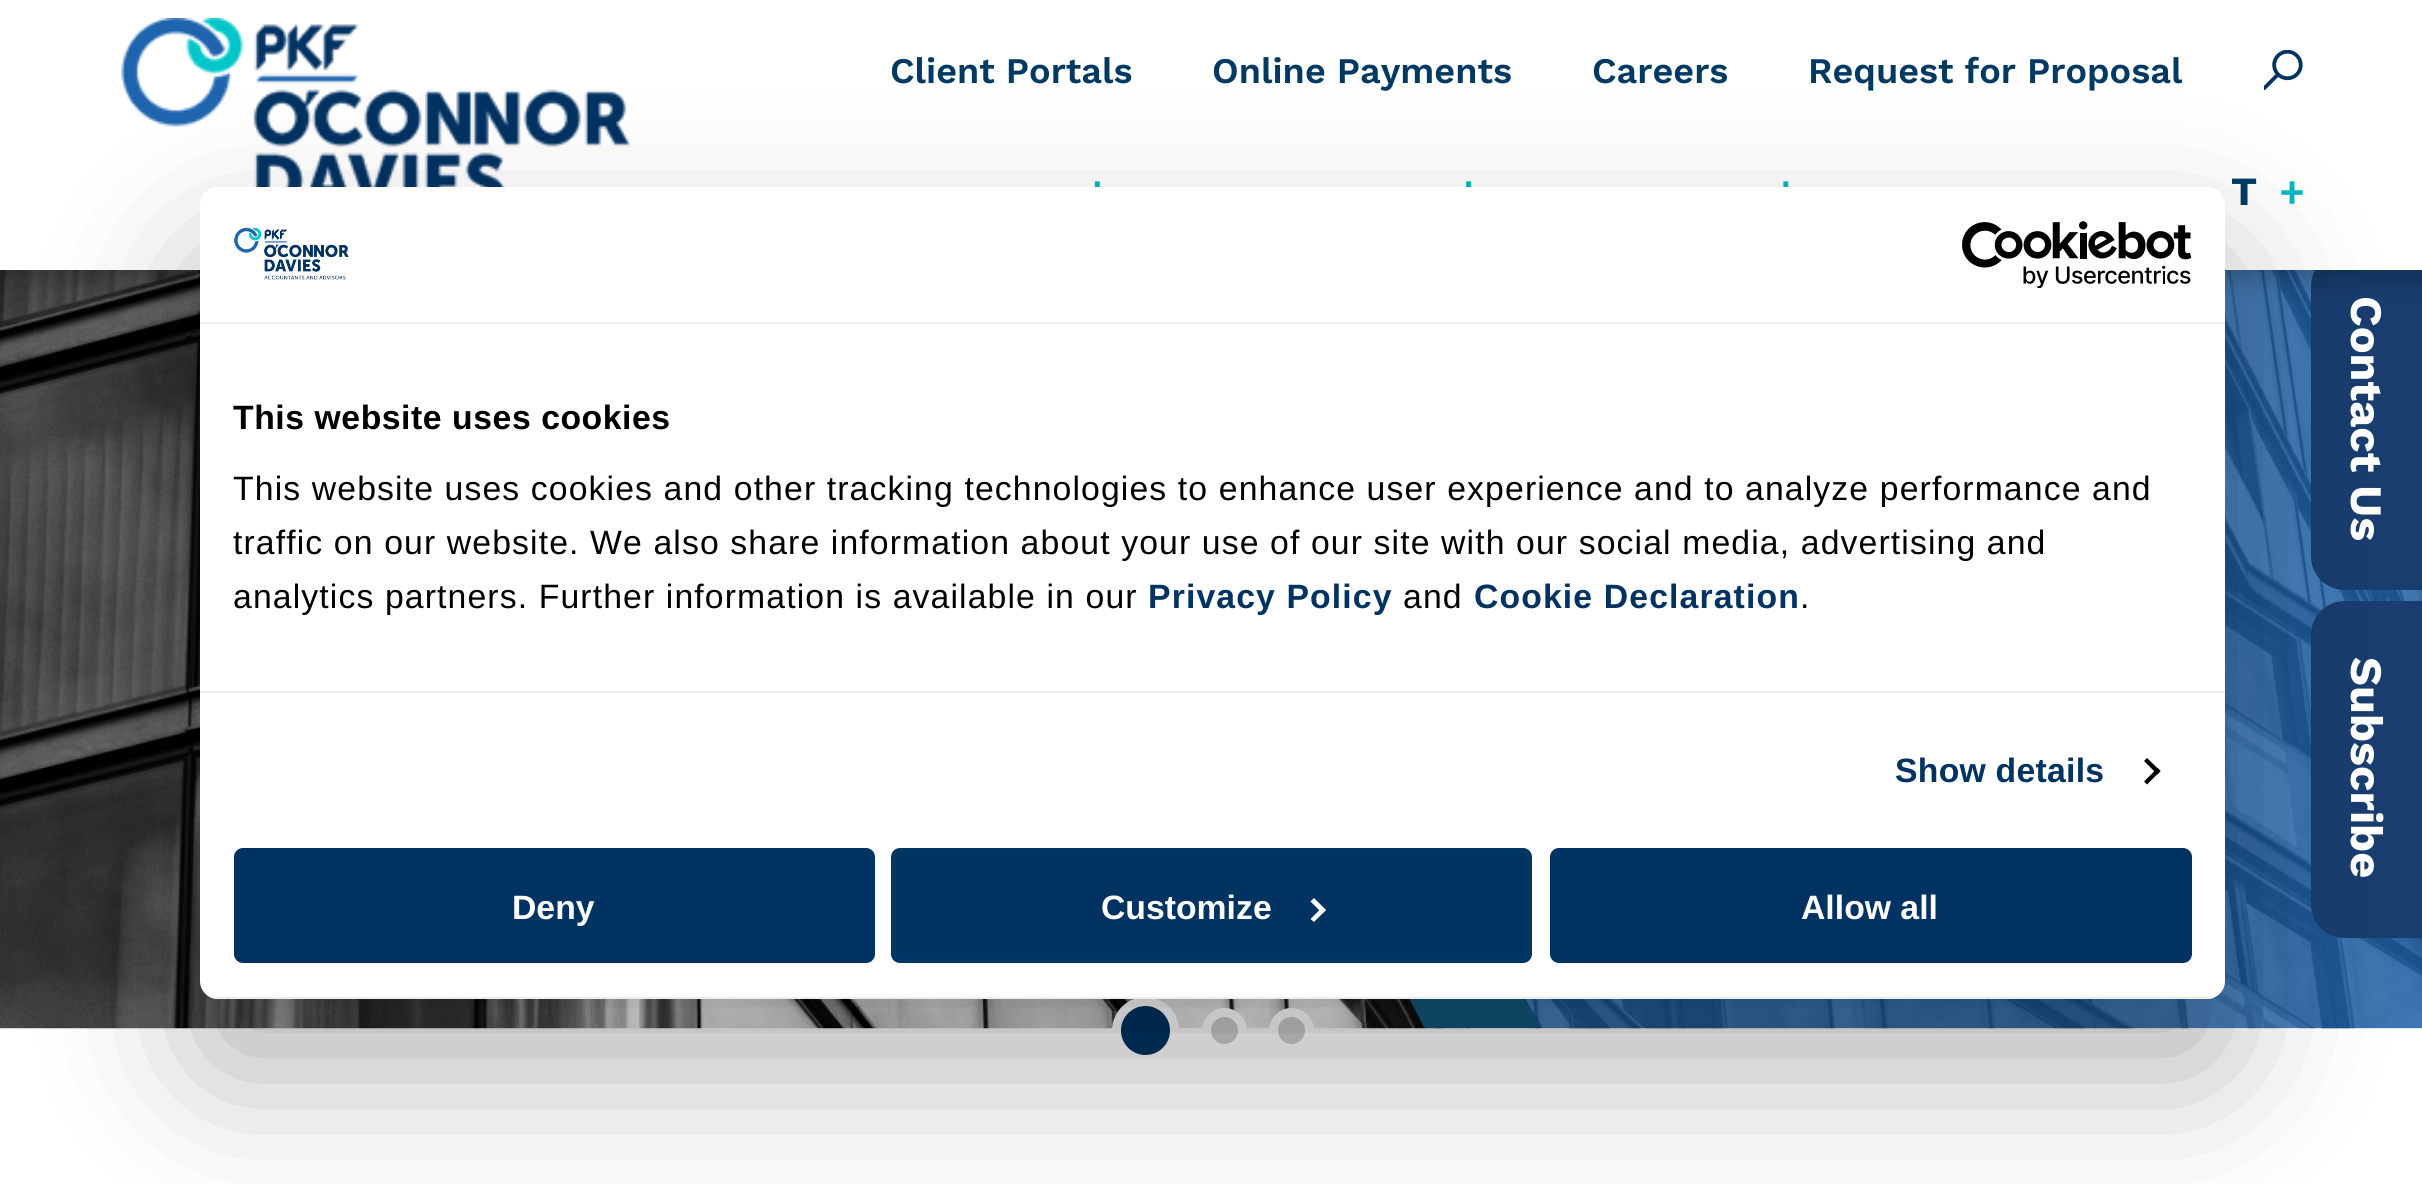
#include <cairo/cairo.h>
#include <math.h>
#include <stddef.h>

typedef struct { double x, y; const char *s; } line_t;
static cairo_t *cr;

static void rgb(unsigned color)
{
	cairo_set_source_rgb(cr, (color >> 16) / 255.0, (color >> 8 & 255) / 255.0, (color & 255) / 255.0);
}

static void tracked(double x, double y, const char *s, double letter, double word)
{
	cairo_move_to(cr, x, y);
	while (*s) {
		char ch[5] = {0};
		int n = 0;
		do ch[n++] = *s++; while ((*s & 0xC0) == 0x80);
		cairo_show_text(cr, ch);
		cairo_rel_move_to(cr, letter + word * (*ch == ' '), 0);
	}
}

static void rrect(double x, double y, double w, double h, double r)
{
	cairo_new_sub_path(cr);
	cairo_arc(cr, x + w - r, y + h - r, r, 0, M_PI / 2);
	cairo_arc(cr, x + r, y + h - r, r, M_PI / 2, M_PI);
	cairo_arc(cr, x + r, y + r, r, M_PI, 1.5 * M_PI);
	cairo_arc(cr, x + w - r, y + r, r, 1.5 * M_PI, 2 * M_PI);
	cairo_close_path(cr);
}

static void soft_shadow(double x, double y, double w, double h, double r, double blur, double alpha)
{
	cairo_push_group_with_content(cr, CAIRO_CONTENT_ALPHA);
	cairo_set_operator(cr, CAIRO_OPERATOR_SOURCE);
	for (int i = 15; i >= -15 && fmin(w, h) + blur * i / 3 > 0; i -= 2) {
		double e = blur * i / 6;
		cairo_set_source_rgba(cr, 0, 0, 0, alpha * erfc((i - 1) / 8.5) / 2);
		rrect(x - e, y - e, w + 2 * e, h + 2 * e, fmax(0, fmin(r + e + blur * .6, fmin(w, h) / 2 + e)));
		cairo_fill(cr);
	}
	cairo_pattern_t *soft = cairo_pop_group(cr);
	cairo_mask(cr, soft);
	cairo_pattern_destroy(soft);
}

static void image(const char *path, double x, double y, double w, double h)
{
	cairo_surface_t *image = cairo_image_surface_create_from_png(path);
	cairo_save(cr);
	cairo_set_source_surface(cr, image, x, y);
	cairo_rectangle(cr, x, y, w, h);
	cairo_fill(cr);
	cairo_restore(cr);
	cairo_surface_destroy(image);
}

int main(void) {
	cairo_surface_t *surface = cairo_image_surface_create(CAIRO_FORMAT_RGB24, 2422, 1184);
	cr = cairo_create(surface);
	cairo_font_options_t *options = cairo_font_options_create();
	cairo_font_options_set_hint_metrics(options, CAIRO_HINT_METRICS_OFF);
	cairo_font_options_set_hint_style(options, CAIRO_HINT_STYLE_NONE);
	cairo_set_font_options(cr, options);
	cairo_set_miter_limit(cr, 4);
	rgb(0xffffff);
	cairo_paint(cr);
	image("img/7.png", 0, 270, 2422, 759);
	image("img/8.png", 1409, 270, 1013, 759);
	rgb(0x000000);
	soft_shadow(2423, 261, 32, 338, 0, 11, 0.15);
	rgb(0x183d6e);
	cairo_new_path(cr);
	cairo_move_to(cr, 2345, 252);
	cairo_line_to(cr, 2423, 252);
	cairo_line_to(cr, 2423, 590);
	cairo_line_to(cr, 2345, 590);
	cairo_curve_to(cr, 2326, 590, 2311, 575, 2311, 556);
	cairo_line_to(cr, 2311, 286);
	cairo_curve_to(cr, 2311, 267, 2326, 252, 2345, 252);
	cairo_close_path(cr);
	cairo_fill(cr);
	rgb(0x000000);
	soft_shadow(0, 9, 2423, 270, 0, 11, 0.25);
	rgb(0xffffff);
	cairo_rectangle(cr, 0, 0, 2422, 270);
	cairo_fill(cr);
	image("img/1.png", 121, 18, 509, 169);
	image("img/2.png", 2264, 50, 39, 40);
	image("img/3.png", 1094, 181, 6, 6);
	image("img/4.png", 1466, 181, 6, 6);
	image("img/5.png", 1783, 181, 6, 6);
	image("img/6.png", 2281, 181, 22, 23);
	rgb(0x003262);
	cairo_arc(cr, 1145.5, 1030.5, 29, 0, 2 * M_PI);
	cairo_fill_preserve(cr);
	rgb(0xffffff);
	cairo_set_line_width(cr, 9);
	cairo_stroke(cr);
	rgb(0xcccccc);
	cairo_arc(cr, 1224.5, 1030.5, 18, 0, 2 * M_PI);
	cairo_fill_preserve(cr);
	rgb(0xffffff);
	cairo_stroke(cr);
	rgb(0xcccccc);
	cairo_arc(cr, 1291.5, 1030.5, 18, 0, 2 * M_PI);
	cairo_fill_preserve(cr);
	rgb(0xffffff);
	cairo_stroke(cr);
	rgb(0x000000);
	soft_shadow(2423, 610, 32, 337, 0, 11, 0.15);
	rgb(0x183d6e);
	cairo_new_path(cr);
	cairo_move_to(cr, 2345, 601);
	cairo_line_to(cr, 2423, 601);
	cairo_line_to(cr, 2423, 938);
	cairo_line_to(cr, 2345, 938);
	cairo_curve_to(cr, 2326, 938, 2311, 923, 2311, 904);
	cairo_line_to(cr, 2311, 635);
	cairo_curve_to(cr, 2311, 616, 2326, 601, 2345, 601);
	cairo_close_path(cr);
	cairo_fill(cr);
	rgb(0x000000);
	soft_shadow(200, 259, 2025, 812, 18, 76.5, 0.3);
	rgb(0xffffff);
	rrect(200, 187, 2025, 812, 18);
	cairo_fill(cr);
	rgb(0xeeeeee);
	cairo_rectangle(cr, 200, 322, 2025, 2);
	cairo_fill(cr);
	image("img/9.png", 234, 227, 115, 53);
	image("img/10.png", 1962, 221, 230, 67);
	cairo_rectangle(cr, 200, 691, 2025, 2);
	cairo_fill(cr);
	rgb(0x000000);
	cairo_new_path(cr);
	cairo_move_to(cr, 2147, 758);
	cairo_line_to(cr, 2160.5, 771);
	cairo_line_to(cr, 2157.5, 774.5);
	cairo_line_to(cr, 2144, 761);
	cairo_close_path(cr);
	cairo_fill(cr);
	cairo_new_path(cr);
	cairo_move_to(cr, 2157.5, 768);
	cairo_line_to(cr, 2160.5, 771);
	cairo_line_to(cr, 2147, 784.5);
	cairo_line_to(cr, 2144, 781.5);
	cairo_close_path(cr);
	cairo_fill(cr);
	cairo_save(cr);
	rrect(200, 187, 2025, 812, 18);
	cairo_clip(cr);
	rgb(0xeeeeee);
	cairo_rectangle(cr, 210, 997, 2005, 2);
	cairo_fill(cr);
	cairo_restore(cr);
	rgb(0x003262);
	rrect(236.5, 850.5, 636, 110, 6.5);
	cairo_fill_preserve(cr);
	cairo_set_line_width(cr, 5);
	cairo_stroke(cr);
	rrect(893.5, 850.5, 636, 110, 6.5);
	cairo_fill_preserve(cr);
	rgb(0x003762);
	cairo_stroke(cr);
	rgb(0xffffff);
	cairo_new_path(cr);
	cairo_move_to(cr, 1314, 898);
	cairo_line_to(cr, 1326, 910);
	cairo_line_to(cr, 1322.5, 913.5);
	cairo_line_to(cr, 1310.5, 901.5);
	cairo_close_path(cr);
	cairo_fill(cr);
	cairo_new_path(cr);
	cairo_move_to(cr, 1322.5, 907);
	cairo_line_to(cr, 1326, 910);
	cairo_line_to(cr, 1314, 922);
	cairo_line_to(cr, 1310.5, 919);
	cairo_close_path(cr);
	cairo_fill(cr);
	rgb(0x003262);
	rrect(1552.5, 850.5, 637, 110, 6.5);
	cairo_fill_preserve(cr);
	cairo_stroke(cr);
	cairo_select_font_face(cr, "Work Sans SemiBold", CAIRO_FONT_SLANT_NORMAL, CAIRO_FONT_WEIGHT_NORMAL);
	cairo_set_font_size(cr, 36);
	rgb(0x003a62);
	{
		static const line_t items[] = {
			{890, 83, "Client Portals"},
			{1212, 83, "Online Payments"},
			{1592, 83, "Careers"},
			{1808, 83, "Request for Proposal"},
		};
		for (size_t i = 0; i < sizeof items / sizeof *items; i++) {
			cairo_move_to(cr, items[i].x, items[i].y);
			cairo_show_text(cr, items[i].s);
		}
	}
	cairo_select_font_face(cr, "Work Sans", CAIRO_FONT_SLANT_NORMAL, CAIRO_FONT_WEIGHT_BOLD);
	cairo_set_font_size(cr, 40);
	cairo_move_to(cr, 2231, 205);
	cairo_show_text(cr, "T");
	cairo_set_font_size(cr, 45);
	rgb(0xffffff);
	cairo_save(cr);
	cairo_translate(cr, 2351, 296);
	cairo_rotate(cr, 90 * M_PI / 180);
	cairo_move_to(cr, 0, 0);
	cairo_show_text(cr, "Contact Us");
	cairo_restore(cr);
	cairo_save(cr);
	cairo_translate(cr, 2351, 657);
	cairo_rotate(cr, 90 * M_PI / 180);
	cairo_move_to(cr, 0, 0);
	cairo_show_text(cr, "Subscribe");
	cairo_restore(cr);
	cairo_select_font_face(cr, "Liberation Sans", CAIRO_FONT_SLANT_NORMAL, CAIRO_FONT_WEIGHT_BOLD);
	cairo_set_font_size(cr, 33.75);
	rgb(0x000000);
	tracked(233, 429, "This website uses cookies", 0.55, 0);
	cairo_select_font_face(cr, "Liberation Sans", CAIRO_FONT_SLANT_NORMAL, CAIRO_FONT_WEIGHT_NORMAL);
	{
		static const line_t items[] = {
			{233, 500, "This website uses cookies and other tracking technologies to enhance user experience and to analyze performance and"},
			{233, 554, "traffic on our website. We also share information about your use of our site with our social media, advertising and"},
			{233, 608, "analytics partners. Further information is available in our"},
		};
		for (size_t i = 0; i < sizeof items / sizeof *items; i++) {
			tracked(items[i].x, items[i].y, items[i].s, 1.12, 0);
		}
	}
	cairo_select_font_face(cr, "Liberation Sans", CAIRO_FONT_SLANT_NORMAL, CAIRO_FONT_WEIGHT_BOLD);
	rgb(0x003262);
	tracked(1148, 608, "Privacy Policy", 1.12, 0);
	cairo_select_font_face(cr, "Liberation Sans", CAIRO_FONT_SLANT_NORMAL, CAIRO_FONT_WEIGHT_NORMAL);
	rgb(0x000000);
	tracked(1403, 608, "and", 1.12, 0);
	cairo_select_font_face(cr, "Liberation Sans", CAIRO_FONT_SLANT_NORMAL, CAIRO_FONT_WEIGHT_BOLD);
	rgb(0x003262);
	tracked(1474, 608, "Cookie Declaration", 1.12, 0);
	cairo_select_font_face(cr, "Liberation Sans", CAIRO_FONT_SLANT_NORMAL, CAIRO_FONT_WEIGHT_NORMAL);
	rgb(0x000000);
	tracked(1800, 608, ".", 1.12, 0);
	cairo_select_font_face(cr, "Liberation Sans", CAIRO_FONT_SLANT_NORMAL, CAIRO_FONT_WEIGHT_BOLD);
	rgb(0x003262);
	tracked(1895, 782, "Show details", 0.25, 0);
	rgb(0xffffff);
	{
		static const line_t items[] = {
			{512, 919, "Deny"},
			{1101, 919, "Customize"},
			{1801, 919, "Allow all"},
		};
		for (size_t i = 0; i < sizeof items / sizeof *items; i++) {
			cairo_move_to(cr, items[i].x, items[i].y);
			cairo_show_text(cr, items[i].s);
		}
	}
	cairo_surface_write_to_png(surface, "page.png");
	cairo_font_options_destroy(options);
	cairo_destroy(cr);
	cairo_surface_destroy(surface);
	return 0;
}
